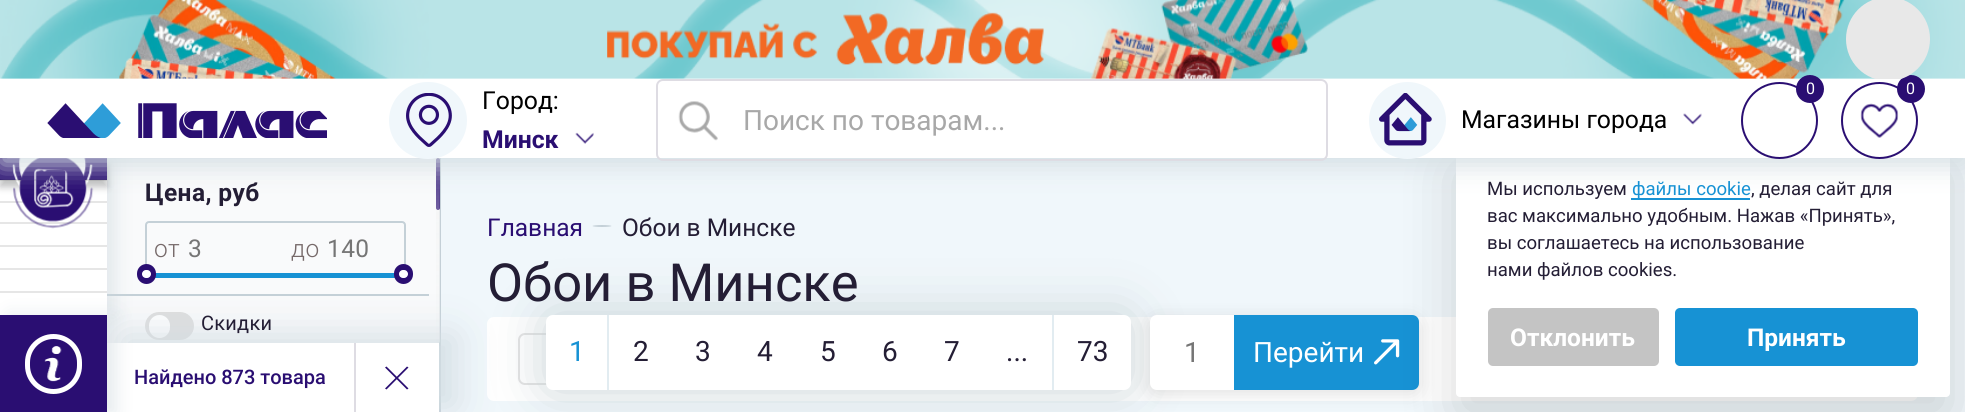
#include <cairo/cairo.h>
#include <math.h>
#include <stddef.h>

typedef struct { double x, y; const char *s; } line_t;
typedef struct { double x, y, w, h; unsigned color; } box_t;
static cairo_t *cr;

static void rgb(unsigned color)
{
	cairo_set_source_rgb(cr, (color >> 16) / 255.0, (color >> 8 & 255) / 255.0, (color & 255) / 255.0);
}

static void tracked(double x, double y, const char *s, double letter, double word)
{
	cairo_move_to(cr, x, y);
	while (*s) {
		char ch[5] = {0};
		int n = 0;
		do ch[n++] = *s++; while ((*s & 0xC0) == 0x80);
		cairo_show_text(cr, ch);
		cairo_rel_move_to(cr, letter + word * (*ch == ' '), 0);
	}
}

static void rrect(double x, double y, double w, double h, double r)
{
	cairo_new_sub_path(cr);
	cairo_arc(cr, x + w - r, y + h - r, r, 0, M_PI / 2);
	cairo_arc(cr, x + r, y + h - r, r, M_PI / 2, M_PI);
	cairo_arc(cr, x + r, y + r, r, M_PI, 1.5 * M_PI);
	cairo_arc(cr, x + w - r, y + r, r, 1.5 * M_PI, 2 * M_PI);
	cairo_close_path(cr);
}

static void soft_shadow(double x, double y, double w, double h, double r, double blur, double alpha)
{
	cairo_push_group_with_content(cr, CAIRO_CONTENT_ALPHA);
	cairo_set_operator(cr, CAIRO_OPERATOR_SOURCE);
	for (int i = 15; i >= -15 && fmin(w, h) + blur * i / 3 > 0; i -= 2) {
		double e = blur * i / 6;
		cairo_set_source_rgba(cr, 0, 0, 0, alpha * erfc((i - 1) / 8.5) / 2);
		rrect(x - e, y - e, w + 2 * e, h + 2 * e, fmax(0, fmin(r + e + blur * .6, fmin(w, h) / 2 + e)));
		cairo_fill(cr);
	}
	cairo_pattern_t *soft = cairo_pop_group(cr);
	cairo_mask(cr, soft);
	cairo_pattern_destroy(soft);
}

static void image(const char *path, double x, double y, double w, double h)
{
	cairo_surface_t *image = cairo_image_surface_create_from_png(path);
	cairo_save(cr);
	cairo_set_source_surface(cr, image, x, y);
	cairo_rectangle(cr, x, y, w, h);
	cairo_fill(cr);
	cairo_restore(cr);
	cairo_surface_destroy(image);
}

int main(void) {
	cairo_surface_t *surface = cairo_image_surface_create(CAIRO_FORMAT_RGB24, 1965, 412);
	cr = cairo_create(surface);
	cairo_font_options_t *options = cairo_font_options_create();
	cairo_font_options_set_hint_metrics(options, CAIRO_HINT_METRICS_OFF);
	cairo_font_options_set_hint_style(options, CAIRO_HINT_STYLE_NONE);
	cairo_set_font_options(cr, options);
	cairo_set_miter_limit(cr, 4);
	cairo_pattern_t *gradient;
	rgb(0xf0f7fb);
	cairo_paint(cr);
	rgb(0xf9fafb);
	cairo_rectangle(cr, 107, 158, 332, 185);
	cairo_fill(cr);
	rgb(0xc4d0d7);
	cairo_rectangle(cr, 107, 294, 322, 2);
	cairo_fill(cr);
	rrect(146, 222, 259, 55, 3);
	cairo_stroke(cr);
	rgb(0x1792d4);
	cairo_rectangle(cr, 147, 273, 248, 5);
	cairo_fill(cr);
	rgb(0x2a0e72);
	rrect(137, 264, 19, 20, 9.5);
	cairo_fill(cr);
	rgb(0xffffff);
	rrect(142, 270, 9, 8, 4);
	cairo_fill(cr);
	rgb(0xccd7dd);
	soft_shadow(9, 158, 107, 157, 0, 9, 0.5);
	rgb(0xc4d0d7);
	cairo_rectangle(cr, 439, 158, 2, 254);
	cairo_fill(cr);
	rgb(0x2a0e72);
	rrect(394, 264, 19, 20, 9.5);
	cairo_fill(cr);
	rgb(0xffffff);
	rrect(399, 270, 9, 8, 4);
	cairo_fill(cr);
	rgb(0xdddddd);
	rrect(145, 312, 49, 28, 14);
	cairo_fill(cr);
	rgb(0xffffff);
	rrect(149, 315, 21, 23, 10.5);
	cairo_fill(cr);
	cairo_set_source_rgba(cr, 0.957, 0.957, 0.957, 0.75);
	rrect(436, 158, 4, 185, 2);
	cairo_fill(cr);
	cairo_set_source_rgba(cr, 0.165, 0.055, 0.447, 0.75);
	rrect(436, 158, 4, 52, 2);
	cairo_fill(cr);
	gradient = cairo_pattern_create_linear(273, 180, 273, 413);
	cairo_pattern_add_color_stop_rgba(gradient, 0, 0.976, 0.98, 0.984, 0);
	cairo_pattern_add_color_stop_rgba(gradient, 1, 0.976, 0.98, 0.984, 1);
	cairo_set_source(cr, gradient);
	cairo_pattern_destroy(gradient);
	cairo_rectangle(cr, 436, 185, 3, 158);
	cairo_fill(cr);
	rgb(0xffffff);
	rrect(487, 317, 1431, 84, 7);
	cairo_fill(cr);
	rgb(0xd3dde3);
	soft_shadow(123, 336, 332, 70, 0, 19.5, 1);
	rgb(0xffffff);
	cairo_rectangle(cr, 0, 180, 107, 135);
	cairo_fill(cr);
	rgb(0x000000);
	soft_shadow(0, 165, 107, 22, 0, 3.5, 0.25);
	rgb(0x2a0e72);
	cairo_rectangle(cr, 0, 158, 107, 22);
	cairo_fill(cr);
	image("img/10.png", 12, 158, 81, 34);
	cairo_set_source_rgba(cr, 0, 0, 0, 0.1);
	cairo_rectangle(cr, 0, 179, 107, 2);
	cairo_fill(cr);
	rgb(0xe6e6e6);
	cairo_rectangle(cr, 0, 201, 107, 2);
	cairo_fill(cr);
	cairo_rectangle(cr, 0, 222, 107, 2);
	cairo_fill(cr);
	image("img/11.png", 13, 158, 81, 71);
	rrect(519, 334, 231, 50, 6);
	rgb(0xe0e0e0);
	cairo_stroke(cr);
	rgb(0xc7d0d4);
	soft_shadow(546, 315, 585, 75, 7, 26, 0.95);
	rgb(0xffffff);
	rrect(546, 315, 585, 75, 7);
	cairo_fill(cr);
	rgb(0x353535);
	soft_shadow(1150, 319, 269, 75, 7, 9, 0.15);
	rgb(0x1792d4);
	cairo_new_path(cr);
	cairo_move_to(cr, 1234, 315);
	cairo_line_to(cr, 1412, 315);
	cairo_curve_to(cr, 1416, 315, 1419, 318, 1419, 322);
	cairo_line_to(cr, 1419, 383);
	cairo_curve_to(cr, 1419, 387, 1416, 390, 1412, 390);
	cairo_line_to(cr, 1234, 390);
	cairo_close_path(cr);
	cairo_fill(cr);
	image("img/12.png", 1374, 339, 26, 26);
	rgb(0x000000);
	soft_shadow(1456, 166, 494, 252, 4, 29, 0.15);
	rgb(0xffffff);
	rrect(1456, 145, 494, 252, 4);
	cairo_fill(cr);
	rgb(0x1792d4);
	cairo_rectangle(cr, 1631, 198, 119, 2);
	cairo_fill(cr);
	rgb(0xd3dde2);
	soft_shadow(0, 7, 1965, 158, 0, 13, 1);
	rgb(0xffffff);
	cairo_rectangle(cr, 0, 78, 1965, 80);
	cairo_fill(cr);
	image("img/1.png", 0, 0, 1965, 79);
	cairo_arc(cr, 1879.5, 120.5, 37.5, 0, 2 * M_PI);
	rgb(0x2a0e72);
	cairo_stroke(cr);
	cairo_arc(cr, 1911, 89, 14, 0, 2 * M_PI);
	cairo_fill(cr);
	cairo_save(cr);
	cairo_rectangle(cr, 0, 0, 1965, 79);
	cairo_clip(cr);
	rgb(0xe8e8e8);
	cairo_arc(cr, 1888, 39, 42, 0, 2 * M_PI);
	cairo_fill(cr);
	cairo_restore(cr);
	cairo_arc(cr, 1779.5, 120.5, 37.5, 0, 2 * M_PI);
	cairo_stroke(cr);
	cairo_arc(cr, 1810, 89, 14, 0, 2 * M_PI);
	cairo_fill(cr);
	image("img/2.png", 1860, 103, 39, 35);
	image("img/3.png", 47, 103, 280, 35);
	rgb(0xf0f7fb);
	rrect(389, 82, 78, 77, 38.5);
	cairo_fill(cr);
	image("img/4.png", 406, 93, 46, 54);
	image("img/5.png", 575, 132, 19, 12);
	rrect(657, 80, 670, 80, 6);
	rgb(0xdedce3);
	cairo_stroke(cr);
	image("img/6.png", 678, 101, 40, 40);
	rgb(0xf0f7fb);
	cairo_arc(cr, 1407.5, 120.5, 38.5, 0, 2 * M_PI);
	cairo_fill(cr);
	image("img/7.png", 1379, 93, 53, 53);
	image("img/8.png", 1683, 113, 19, 12);
	rgb(0xe6e6e6);
	cairo_rectangle(cr, 0, 291, 107, 2);
	cairo_fill(cr);
	rgb(0xffffff);
	cairo_rectangle(cr, 107, 343, 332, 69);
	cairo_fill(cr);
	rgb(0xccd7dd);
	soft_shadow(9, 315, 107, 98, 0, 9, 0.5);
	rgb(0x2a0e72);
	cairo_rectangle(cr, 0, 315, 107, 97);
	cairo_fill(cr);
	rrect(27.5, 336.5, 52, 55, 26);
	rgb(0xffffff);
	cairo_set_line_width(cr, 5);
	cairo_stroke(cr);
	image("img/9.png", 44, 346, 18, 36);
	{
		static const box_t items[] = {
			{0, 245, 107, 2, 0xe6e6e6},
			{0, 268, 107, 2, 0xe6e6e6},
			{354, 343, 2, 69, 0xdedce3},
		};
		for (size_t i = 0; i < sizeof items / sizeof *items; i++) {
			rgb(items[i].color);
			cairo_rectangle(cr, items[i].x, items[i].y, items[i].w, items[i].h);
			cairo_fill(cr);
		}
	}
	rgb(0x2a0e72);
	cairo_new_path(cr);
	cairo_move_to(cr, 385, 388.5);
	cairo_line_to(cr, 407, 366.5);
	cairo_line_to(cr, 408.5, 367.5);
	cairo_line_to(cr, 386.5, 389.5);
	cairo_close_path(cr);
	cairo_fill(cr);
	cairo_new_path(cr);
	cairo_move_to(cr, 386.5, 366.5);
	cairo_line_to(cr, 408.5, 388.5);
	cairo_line_to(cr, 407, 389.5);
	cairo_line_to(cr, 385, 367.5);
	cairo_close_path(cr);
	cairo_fill(cr);
	rgb(0xc4d0d7);
	cairo_new_path(cr);
	cairo_move_to(cr, 602, 225);
	cairo_curve_to(cr, 607, 225, 611.5, 225.5, 611.5, 226);
	cairo_curve_to(cr, 611.5, 226.5, 607, 227, 602, 227);
	cairo_curve_to(cr, 597, 227, 592.5, 226.5, 592.5, 226);
	cairo_curve_to(cr, 592.5, 225.5, 597, 225, 602, 225);
	cairo_close_path(cr);
	cairo_fill(cr);
	rgb(0xe2ecf1);
	cairo_rectangle(cr, 607, 315, 2, 75);
	cairo_fill(cr);
	cairo_rectangle(cr, 1052, 315, 2, 75);
	cairo_fill(cr);
	rgb(0xffffff);
	cairo_new_path(cr);
	cairo_move_to(cr, 1157, 315);
	cairo_line_to(cr, 1234, 315);
	cairo_line_to(cr, 1234, 390);
	cairo_line_to(cr, 1157, 390);
	cairo_curve_to(cr, 1153, 390, 1150, 387, 1150, 383);
	cairo_line_to(cr, 1150, 322);
	cairo_curve_to(cr, 1150, 318, 1153, 315, 1157, 315);
	cairo_close_path(cr);
	cairo_fill(cr);
	rgb(0xc4c4c4);
	rrect(1488, 308, 171, 58, 5);
	cairo_fill(cr);
	rgb(0x1792d4);
	rrect(1675, 308, 243, 58, 5);
	cairo_fill(cr);
	cairo_select_font_face(cr, "Roboto", CAIRO_FONT_SLANT_NORMAL, CAIRO_FONT_WEIGHT_NORMAL);
	cairo_set_font_size(cr, 16);
	rgb(0xffffff);
	cairo_move_to(cr, 1806, 94);
	cairo_show_text(cr, "0");
	cairo_move_to(cr, 1906, 94);
	cairo_show_text(cr, "0");
	cairo_set_font_size(cr, 24.75);
	rgb(0x000000);
	cairo_move_to(cr, 482, 109);
	cairo_show_text(cr, "Город:");
	cairo_select_font_face(cr, "Roboto", CAIRO_FONT_SLANT_NORMAL, CAIRO_FONT_WEIGHT_BOLD);
	rgb(0x2a0e72);
	cairo_move_to(cr, 482, 148);
	cairo_show_text(cr, "Минск");
	cairo_select_font_face(cr, "Roboto", CAIRO_FONT_SLANT_NORMAL, CAIRO_FONT_WEIGHT_NORMAL);
	cairo_set_font_size(cr, 28);
	rgb(0xa8a8a8);
	cairo_move_to(cr, 743, 130);
	cairo_show_text(cr, "Поиск по товарам...");
	cairo_set_font_size(cr, 24.75);
	rgb(0x000000);
	cairo_move_to(cr, 1461, 128);
	cairo_show_text(cr, "Магазины города");
	cairo_select_font_face(cr, "Roboto", CAIRO_FONT_SLANT_NORMAL, CAIRO_FONT_WEIGHT_BOLD);
	cairo_set_font_size(cr, 24.5);
	rgb(0x241e35);
	tracked(145, 201, "Цена, руб", 0.4, 0);
	cairo_select_font_face(cr, "Roboto Light", CAIRO_FONT_SLANT_NORMAL, CAIRO_FONT_WEIGHT_NORMAL);
	rgb(0x766969);
	tracked(154, 257, "от", 0.4, 0);
	cairo_select_font_face(cr, "Roboto", CAIRO_FONT_SLANT_NORMAL, CAIRO_FONT_WEIGHT_NORMAL);
	rgb(0x757575);
	tracked(188, 257, "3", 0.4, 0);
	cairo_select_font_face(cr, "Roboto Light", CAIRO_FONT_SLANT_NORMAL, CAIRO_FONT_WEIGHT_NORMAL);
	rgb(0x766969);
	tracked(291, 257, "до", 0.4, 0);
	cairo_select_font_face(cr, "Roboto", CAIRO_FONT_SLANT_NORMAL, CAIRO_FONT_WEIGHT_NORMAL);
	rgb(0x757575);
	tracked(327, 257, "140", 0.4, 0);
	cairo_set_font_size(cr, 20);
	rgb(0x241e35);
	tracked(201, 330, "Скидки", 0.25, 0);
	cairo_select_font_face(cr, "Roboto Medium", CAIRO_FONT_SLANT_NORMAL, CAIRO_FONT_WEIGHT_NORMAL);
	rgb(0x2a0e72);
	cairo_move_to(cr, 134, 384);
	cairo_show_text(cr, "Найдено 873 товара");
	cairo_select_font_face(cr, "Roboto", CAIRO_FONT_SLANT_NORMAL, CAIRO_FONT_WEIGHT_NORMAL);
	cairo_set_font_size(cr, 24.5);
	cairo_move_to(cr, 487, 236);
	cairo_show_text(cr, "Главная");
	rgb(0x241e35);
	cairo_move_to(cr, 622, 236);
	cairo_show_text(cr, "Обои в Минске");
	cairo_set_font_size(cr, 52.5);
	cairo_move_to(cr, 487, 301);
	cairo_show_text(cr, "Обои в Минске");
	cairo_set_font_size(cr, 28);
	rgb(0x1792d4);
	cairo_move_to(cr, 569, 361);
	cairo_show_text(cr, "1");
	rgb(0x241e35);
	{
		static const line_t items[] = {
			{633, 361, "2"},
			{695, 361, "3"},
			{757, 361, "4"},
			{820, 361, "5"},
			{882, 361, "6"},
			{944, 361, "7"},
			{1006, 361, "..."},
			{1077, 361, "73"},
		};
		for (size_t i = 0; i < sizeof items / sizeof *items; i++) {
			cairo_move_to(cr, items[i].x, items[i].y);
			cairo_show_text(cr, items[i].s);
		}
	}
	rgb(0x757575);
	cairo_move_to(cr, 1184, 362);
	cairo_show_text(cr, "1");
	rgb(0xffffff);
	cairo_move_to(cr, 1253, 362);
	cairo_show_text(cr, "Перейти");
	cairo_set_font_size(cr, 18.6);
	rgb(0x241e35);
	cairo_move_to(cr, 1487, 195);
	cairo_show_text(cr, "Мы используем");
	rgb(0x1792d4);
	cairo_move_to(cr, 1632, 195);
	cairo_show_text(cr, "файлы cookie");
	rgb(0x241e35);
	{
		static const line_t items[] = {
			{1751, 195, ", делая сайт для"},
			{1487, 222, "вас максимально удобным. Нажав «Принять»,"},
			{1487, 249, "вы соглашаетесь на использование"},
			{1487, 276, "нами файлов cookies."},
		};
		for (size_t i = 0; i < sizeof items / sizeof *items; i++) {
			cairo_move_to(cr, items[i].x, items[i].y);
			cairo_show_text(cr, items[i].s);
		}
	}
	cairo_select_font_face(cr, "Roboto", CAIRO_FONT_SLANT_NORMAL, CAIRO_FONT_WEIGHT_BOLD);
	cairo_set_font_size(cr, 24.5);
	rgb(0xffffff);
	cairo_move_to(cr, 1510, 346);
	cairo_show_text(cr, "Отклонить");
	cairo_move_to(cr, 1747, 346);
	cairo_show_text(cr, "Принять");
	cairo_surface_write_to_png(surface, "page.png");
	cairo_font_options_destroy(options);
	cairo_destroy(cr);
	cairo_surface_destroy(surface);
	return 0;
}
